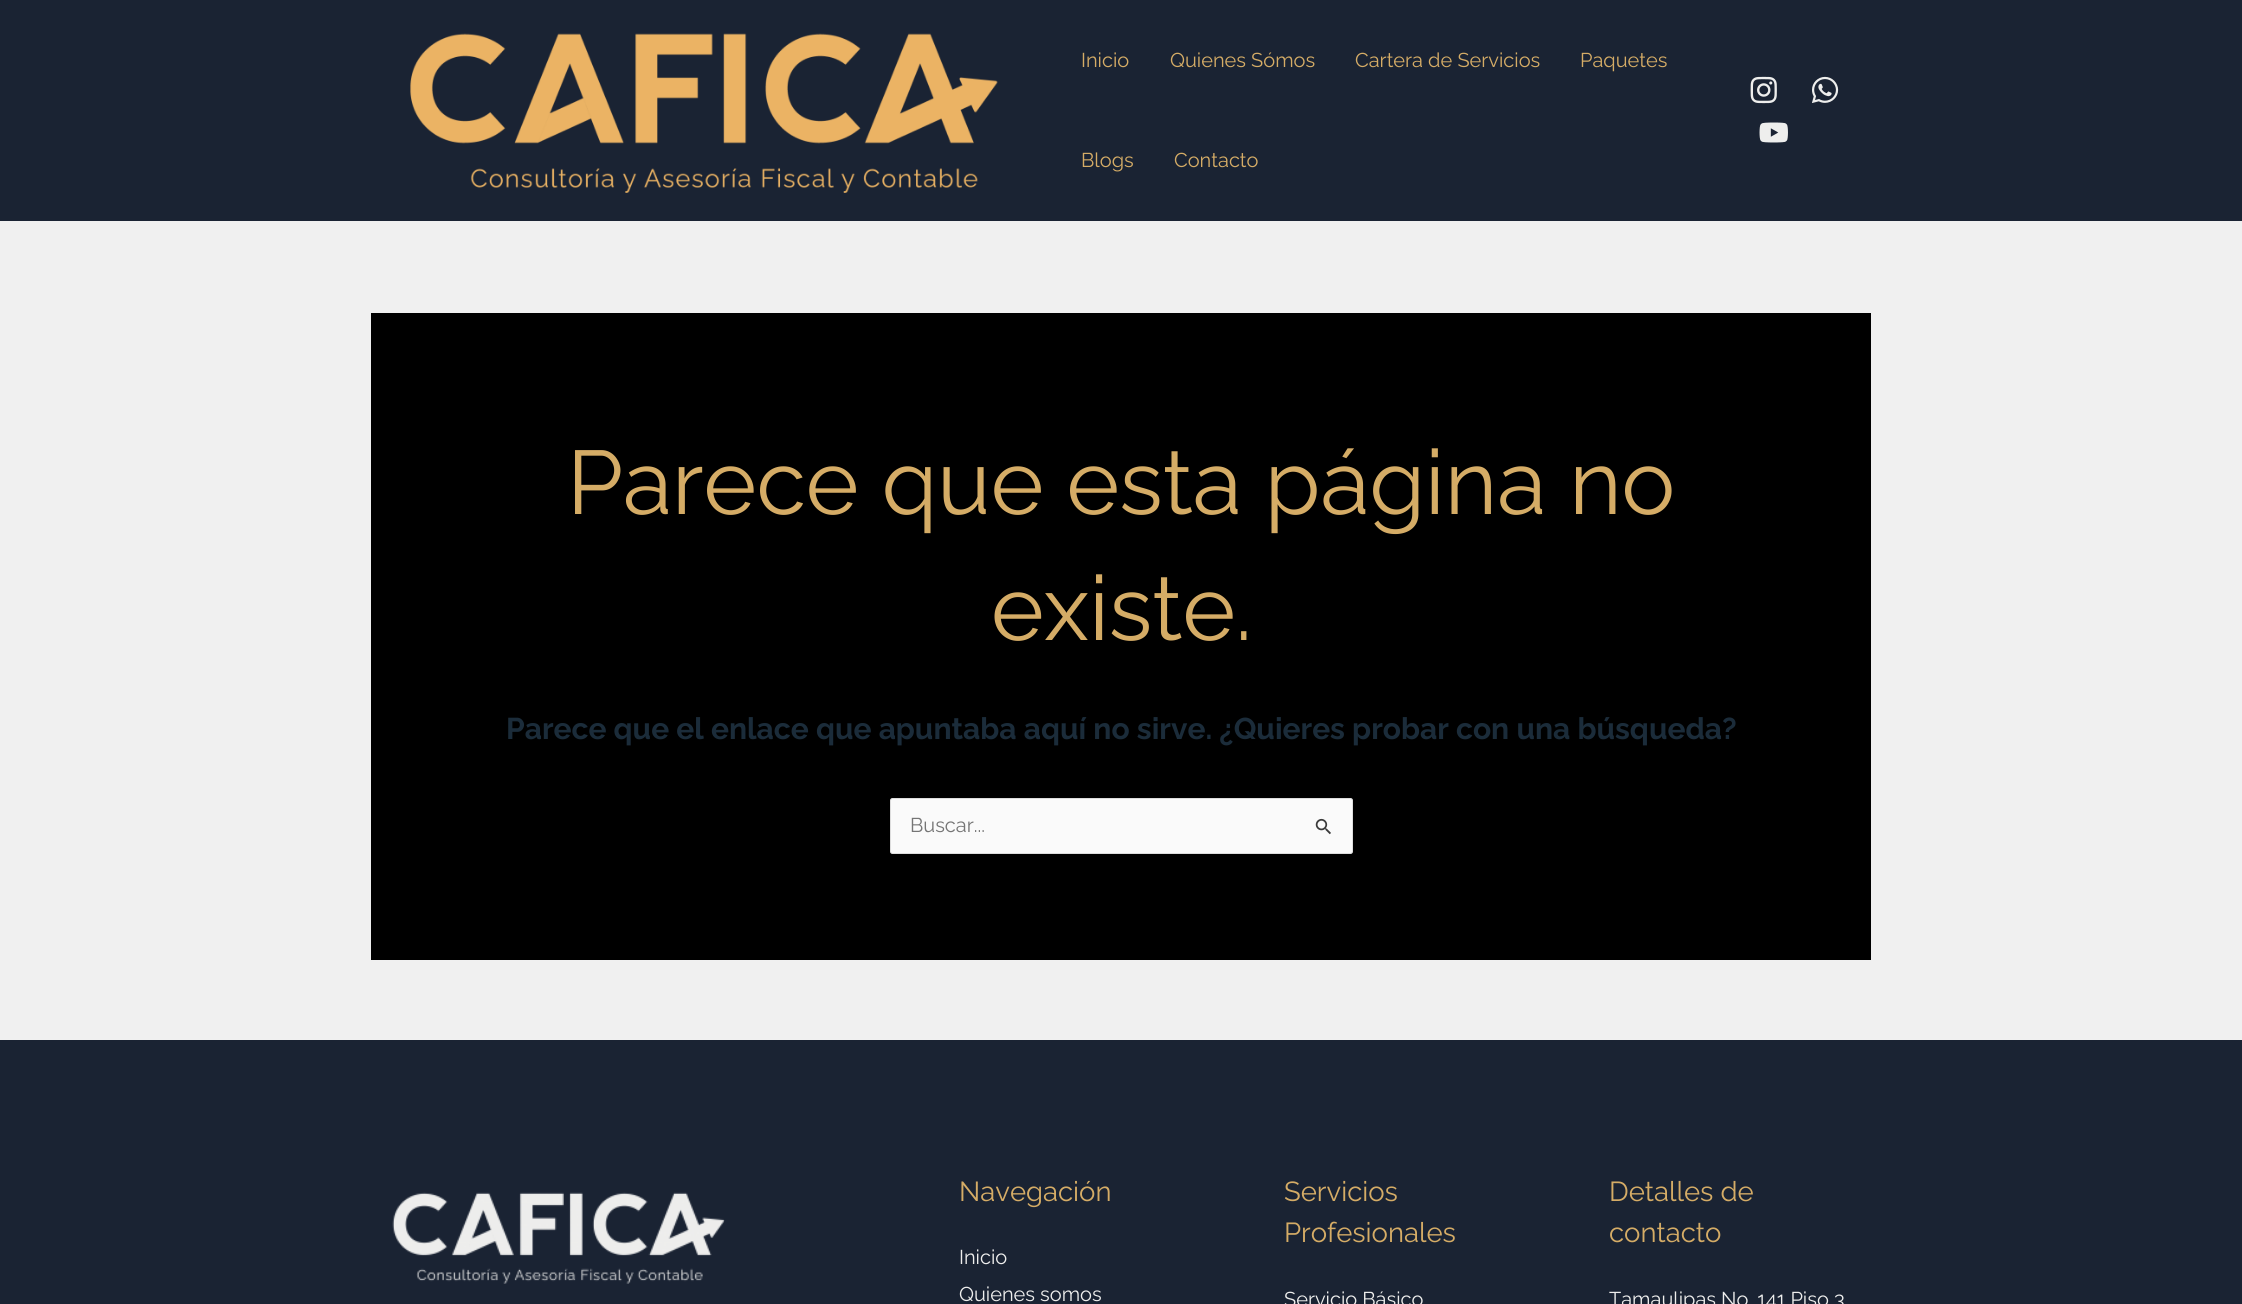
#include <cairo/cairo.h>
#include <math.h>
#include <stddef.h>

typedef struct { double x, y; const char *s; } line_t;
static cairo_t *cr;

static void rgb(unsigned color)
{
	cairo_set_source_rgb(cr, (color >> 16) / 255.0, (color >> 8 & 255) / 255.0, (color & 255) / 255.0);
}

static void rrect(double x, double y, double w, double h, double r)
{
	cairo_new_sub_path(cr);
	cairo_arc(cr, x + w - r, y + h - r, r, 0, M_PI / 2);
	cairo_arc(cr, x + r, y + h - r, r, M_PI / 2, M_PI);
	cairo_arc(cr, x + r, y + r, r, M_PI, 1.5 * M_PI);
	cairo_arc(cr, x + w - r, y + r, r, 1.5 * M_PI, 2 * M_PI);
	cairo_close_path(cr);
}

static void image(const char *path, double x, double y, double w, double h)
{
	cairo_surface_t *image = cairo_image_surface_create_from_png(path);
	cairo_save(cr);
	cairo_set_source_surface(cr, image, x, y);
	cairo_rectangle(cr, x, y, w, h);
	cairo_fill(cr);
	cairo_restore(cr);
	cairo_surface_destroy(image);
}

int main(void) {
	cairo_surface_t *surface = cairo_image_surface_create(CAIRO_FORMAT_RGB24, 2242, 1304);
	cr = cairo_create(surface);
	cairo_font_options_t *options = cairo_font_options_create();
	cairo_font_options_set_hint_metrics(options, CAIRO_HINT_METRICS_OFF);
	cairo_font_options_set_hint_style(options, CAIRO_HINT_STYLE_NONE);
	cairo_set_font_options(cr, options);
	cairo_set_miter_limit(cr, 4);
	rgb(0xf0f0f0);
	cairo_paint(cr);
	rgb(0x1a2333);
	cairo_rectangle(cr, 0, 0, 2242, 221);
	cairo_fill(cr);
	image("img/1.png", 410, 33, 588, 160);
	image("img/2.png", 1750, 76, 27, 28);
	image("img/3.png", 1812, 76, 27, 27);
	image("img/4.png", 1759, 122, 29, 21);
	rgb(0x000000);
	cairo_rectangle(cr, 371, 313, 1500, 647);
	cairo_fill(cr);
	rgb(0xfafafa);
	rrect(890.5, 798.5, 462, 55, 2);
	cairo_fill_preserve(cr);
	rgb(0xdddddd);
	cairo_set_line_width(cr, 1);
	cairo_stroke(cr);
	image("img/5.png", 1315, 818, 16, 17);
	rgb(0x1a2333);
	cairo_rectangle(cr, 0, 1040, 2242, 264);
	cairo_fill(cr);
	image("img/6.png", 392, 1192, 333, 92);
	cairo_select_font_face(cr, "Raleway", CAIRO_FONT_SLANT_NORMAL, CAIRO_FONT_WEIGHT_NORMAL);
	cairo_set_font_size(cr, 20);
	rgb(0xd5ac66);
	{
		static const line_t items[] = {
			{1081, 67, "Inicio"},
			{1170, 67, "Quienes Sómos"},
			{1355, 67, "Cartera de Servicios"},
			{1580, 67, "Paquetes"},
			{1081, 167, "Blogs"},
			{1174, 167, "Contacto"},
		};
		for (size_t i = 0; i < sizeof items / sizeof *items; i++) {
			cairo_move_to(cr, items[i].x, items[i].y);
			cairo_show_text(cr, items[i].s);
		}
	}
	cairo_set_font_size(cr, 90);
	cairo_move_to(cr, 567, 514);
	cairo_show_text(cr, "Parece que esta página no");
	cairo_move_to(cr, 991, 640);
	cairo_show_text(cr, "existe.");
	cairo_select_font_face(cr, "Raleway", CAIRO_FONT_SLANT_NORMAL, CAIRO_FONT_WEIGHT_BOLD);
	cairo_set_font_size(cr, 30);
	rgb(0x1b2c3a);
	cairo_move_to(cr, 506, 739);
	cairo_show_text(cr, "Parece que el enlace que apuntaba aquí no sirve. ¿Quieres probar con una búsqueda?");
	cairo_select_font_face(cr, "Raleway", CAIRO_FONT_SLANT_NORMAL, CAIRO_FONT_WEIGHT_NORMAL);
	cairo_set_font_size(cr, 20);
	rgb(0x757575);
	cairo_move_to(cr, 910, 832);
	cairo_show_text(cr, "Buscar...");
	cairo_set_font_size(cr, 27.5);
	rgb(0xd5ac66);
	cairo_move_to(cr, 959, 1201);
	cairo_show_text(cr, "Navegación");
	cairo_set_font_size(cr, 20);
	rgb(0xeeeeed);
	cairo_move_to(cr, 959, 1264);
	cairo_show_text(cr, "Inicio");
	cairo_move_to(cr, 959, 1301);
	cairo_show_text(cr, "Quienes somos");
	cairo_set_font_size(cr, 27.5);
	rgb(0xd5ac66);
	cairo_move_to(cr, 1284, 1201);
	cairo_show_text(cr, "Servicios");
	cairo_move_to(cr, 1284, 1242);
	cairo_show_text(cr, "Profesionales");
	cairo_set_font_size(cr, 20);
	rgb(0xeeeeed);
	cairo_move_to(cr, 1284, 1306);
	cairo_show_text(cr, "Servicio Básico");
	cairo_set_font_size(cr, 27.5);
	rgb(0xd5ac66);
	cairo_move_to(cr, 1609, 1201);
	cairo_show_text(cr, "Detalles de");
	cairo_move_to(cr, 1609, 1242);
	cairo_show_text(cr, "contacto");
	cairo_set_font_size(cr, 20);
	rgb(0xeeeeed);
	cairo_move_to(cr, 1609, 1306);
	cairo_show_text(cr, "Tamaulipas No. 141 Piso 3");
	cairo_surface_write_to_png(surface, "page.png");
	cairo_font_options_destroy(options);
	cairo_destroy(cr);
	cairo_surface_destroy(surface);
	return 0;
}
